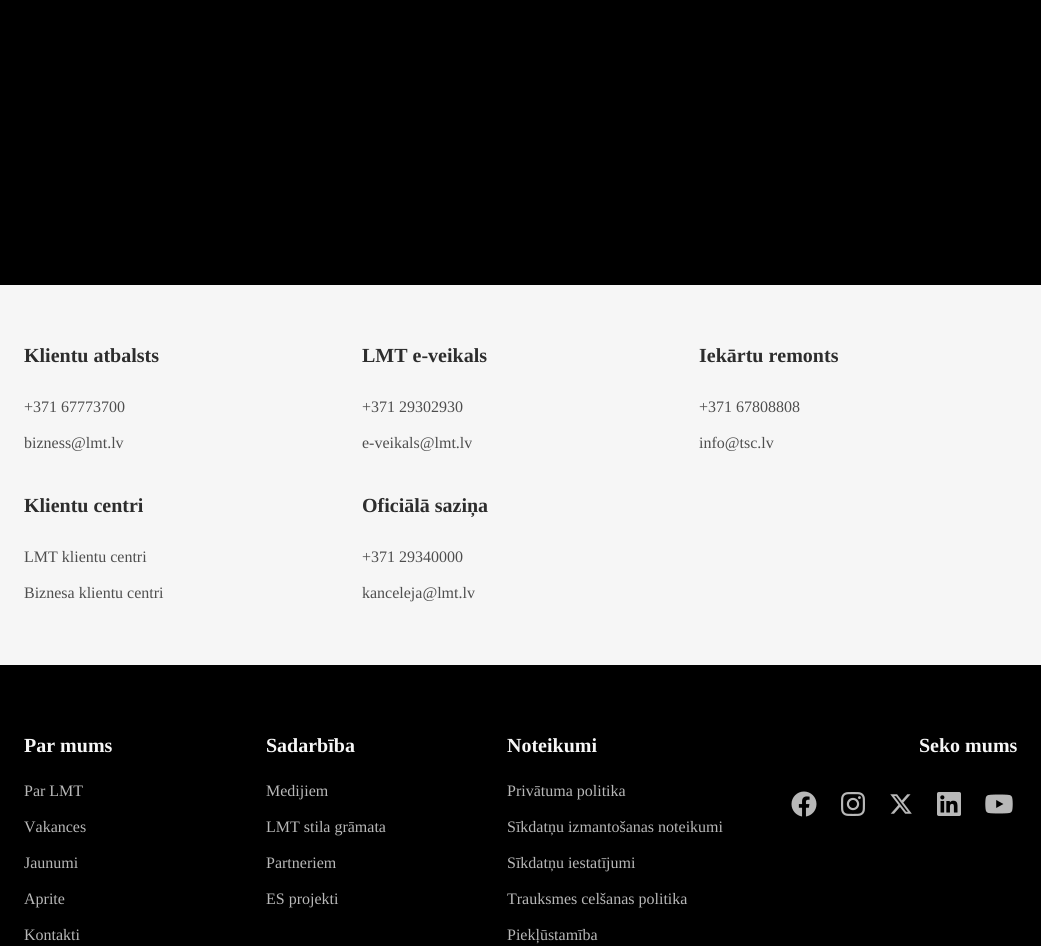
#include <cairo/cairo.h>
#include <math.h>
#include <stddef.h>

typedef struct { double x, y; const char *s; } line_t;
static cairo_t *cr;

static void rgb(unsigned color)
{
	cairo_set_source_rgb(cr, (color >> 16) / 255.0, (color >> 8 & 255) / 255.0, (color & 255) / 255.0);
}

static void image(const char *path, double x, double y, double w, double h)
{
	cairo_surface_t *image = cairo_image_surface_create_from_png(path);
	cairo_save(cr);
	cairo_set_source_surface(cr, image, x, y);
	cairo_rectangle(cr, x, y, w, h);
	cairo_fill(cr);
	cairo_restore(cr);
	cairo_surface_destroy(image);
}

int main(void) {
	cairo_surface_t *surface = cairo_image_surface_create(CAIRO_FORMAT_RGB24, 1041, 946);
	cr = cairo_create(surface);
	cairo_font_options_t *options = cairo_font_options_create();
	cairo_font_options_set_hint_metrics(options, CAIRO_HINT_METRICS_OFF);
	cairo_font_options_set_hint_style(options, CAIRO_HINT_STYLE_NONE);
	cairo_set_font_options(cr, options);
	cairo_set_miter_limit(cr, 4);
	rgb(0x000000);
	cairo_paint(cr);
	rgb(0xf6f6f6);
	cairo_rectangle(cr, 0, 285, 1041, 380);
	cairo_fill(cr);
	image("img/1.png", 791, 791, 26, 26);
	image("img/2.png", 841, 792, 24, 24);
	image("img/3.png", 890, 794, 22, 20);
	image("img/4.png", 937, 792, 24, 24);
	image("img/5.png", 985, 794, 28, 20);
	cairo_select_font_face(cr, "Liberation Serif", CAIRO_FONT_SLANT_NORMAL, CAIRO_FONT_WEIGHT_BOLD);
	cairo_set_font_size(cr, 20);
	rgb(0x2d2d2d);
	cairo_move_to(cr, 24, 362);
	cairo_show_text(cr, "Klientu atbalsts");
	cairo_select_font_face(cr, "Liberation Serif", CAIRO_FONT_SLANT_NORMAL, CAIRO_FONT_WEIGHT_NORMAL);
	cairo_set_font_size(cr, 16);
	rgb(0x4e4e4e);
	cairo_move_to(cr, 24, 412);
	cairo_show_text(cr, "+371 67773700");
	cairo_move_to(cr, 24, 448);
	cairo_show_text(cr, "bizness@lmt.lv");
	cairo_select_font_face(cr, "Liberation Serif", CAIRO_FONT_SLANT_NORMAL, CAIRO_FONT_WEIGHT_BOLD);
	cairo_set_font_size(cr, 20);
	rgb(0x2d2d2d);
	cairo_move_to(cr, 362, 362);
	cairo_show_text(cr, "LMT e-veikals");
	cairo_select_font_face(cr, "Liberation Serif", CAIRO_FONT_SLANT_NORMAL, CAIRO_FONT_WEIGHT_NORMAL);
	cairo_set_font_size(cr, 16);
	rgb(0x4e4e4e);
	cairo_move_to(cr, 362, 412);
	cairo_show_text(cr, "+371 29302930");
	cairo_move_to(cr, 362, 448);
	cairo_show_text(cr, "e-veikals@lmt.lv");
	cairo_select_font_face(cr, "Liberation Serif", CAIRO_FONT_SLANT_NORMAL, CAIRO_FONT_WEIGHT_BOLD);
	cairo_set_font_size(cr, 20);
	rgb(0x2d2d2d);
	cairo_move_to(cr, 699, 362);
	cairo_show_text(cr, "Iekārtu remonts");
	cairo_select_font_face(cr, "Liberation Serif", CAIRO_FONT_SLANT_NORMAL, CAIRO_FONT_WEIGHT_NORMAL);
	cairo_set_font_size(cr, 16);
	rgb(0x4e4e4e);
	cairo_move_to(cr, 699, 412);
	cairo_show_text(cr, "+371 67808808");
	cairo_move_to(cr, 699, 448);
	cairo_show_text(cr, "info@tsc.lv");
	cairo_select_font_face(cr, "Liberation Serif", CAIRO_FONT_SLANT_NORMAL, CAIRO_FONT_WEIGHT_BOLD);
	cairo_set_font_size(cr, 20);
	rgb(0x2d2d2d);
	cairo_move_to(cr, 24, 512);
	cairo_show_text(cr, "Klientu centri");
	cairo_select_font_face(cr, "Liberation Serif", CAIRO_FONT_SLANT_NORMAL, CAIRO_FONT_WEIGHT_NORMAL);
	cairo_set_font_size(cr, 16);
	rgb(0x4e4e4e);
	cairo_move_to(cr, 24, 562);
	cairo_show_text(cr, "LMT klientu centri");
	cairo_move_to(cr, 24, 598);
	cairo_show_text(cr, "Biznesa klientu centri");
	cairo_select_font_face(cr, "Liberation Serif", CAIRO_FONT_SLANT_NORMAL, CAIRO_FONT_WEIGHT_BOLD);
	cairo_set_font_size(cr, 20);
	rgb(0x2d2d2d);
	cairo_move_to(cr, 362, 512);
	cairo_show_text(cr, "Oficiālā saziņa");
	cairo_select_font_face(cr, "Liberation Serif", CAIRO_FONT_SLANT_NORMAL, CAIRO_FONT_WEIGHT_NORMAL);
	cairo_set_font_size(cr, 16);
	rgb(0x4e4e4e);
	cairo_move_to(cr, 362, 562);
	cairo_show_text(cr, "+371 29340000");
	cairo_move_to(cr, 362, 598);
	cairo_show_text(cr, "kanceleja@lmt.lv");
	cairo_select_font_face(cr, "Liberation Serif", CAIRO_FONT_SLANT_NORMAL, CAIRO_FONT_WEIGHT_BOLD);
	cairo_set_font_size(cr, 20);
	rgb(0xf6f6f6);
	cairo_move_to(cr, 24, 752);
	cairo_show_text(cr, "Par mums");
	cairo_select_font_face(cr, "Liberation Serif", CAIRO_FONT_SLANT_NORMAL, CAIRO_FONT_WEIGHT_NORMAL);
	cairo_set_font_size(cr, 16);
	rgb(0xb8b8b8);
	{
		static const line_t items[] = {
			{24, 796, "Par LMT"},
			{24, 832, "Vakances"},
			{24, 868, "Jaunumi"},
			{24, 904, "Aprite"},
			{24, 940, "Kontakti"},
		};
		for (size_t i = 0; i < sizeof items / sizeof *items; i++) {
			cairo_move_to(cr, items[i].x, items[i].y);
			cairo_show_text(cr, items[i].s);
		}
	}
	cairo_select_font_face(cr, "Liberation Serif", CAIRO_FONT_SLANT_NORMAL, CAIRO_FONT_WEIGHT_BOLD);
	cairo_set_font_size(cr, 20);
	rgb(0xf6f6f6);
	cairo_move_to(cr, 266, 752);
	cairo_show_text(cr, "Sadarbība");
	cairo_select_font_face(cr, "Liberation Serif", CAIRO_FONT_SLANT_NORMAL, CAIRO_FONT_WEIGHT_NORMAL);
	cairo_set_font_size(cr, 16);
	rgb(0xb8b8b8);
	{
		static const line_t items[] = {
			{266, 796, "Medijiem"},
			{266, 832, "LMT stila grāmata"},
			{266, 868, "Partneriem"},
			{266, 904, "ES projekti"},
		};
		for (size_t i = 0; i < sizeof items / sizeof *items; i++) {
			cairo_move_to(cr, items[i].x, items[i].y);
			cairo_show_text(cr, items[i].s);
		}
	}
	cairo_select_font_face(cr, "Liberation Serif", CAIRO_FONT_SLANT_NORMAL, CAIRO_FONT_WEIGHT_BOLD);
	cairo_set_font_size(cr, 20);
	rgb(0xf6f6f6);
	cairo_move_to(cr, 507, 752);
	cairo_show_text(cr, "Noteikumi");
	cairo_select_font_face(cr, "Liberation Serif", CAIRO_FONT_SLANT_NORMAL, CAIRO_FONT_WEIGHT_NORMAL);
	cairo_set_font_size(cr, 16);
	rgb(0xb8b8b8);
	{
		static const line_t items[] = {
			{507, 796, "Privātuma politika"},
			{507, 832, "Sīkdatņu izmantošanas noteikumi"},
			{507, 868, "Sīkdatņu iestatījumi"},
			{507, 904, "Trauksmes celšanas politika"},
			{507, 940, "Piekļūstamība"},
		};
		for (size_t i = 0; i < sizeof items / sizeof *items; i++) {
			cairo_move_to(cr, items[i].x, items[i].y);
			cairo_show_text(cr, items[i].s);
		}
	}
	cairo_select_font_face(cr, "Liberation Serif", CAIRO_FONT_SLANT_NORMAL, CAIRO_FONT_WEIGHT_BOLD);
	cairo_set_font_size(cr, 20);
	rgb(0xf6f6f6);
	cairo_move_to(cr, 919, 752);
	cairo_show_text(cr, "Seko mums");
	cairo_surface_write_to_png(surface, "page.png");
	cairo_font_options_destroy(options);
	cairo_destroy(cr);
	cairo_surface_destroy(surface);
	return 0;
}
